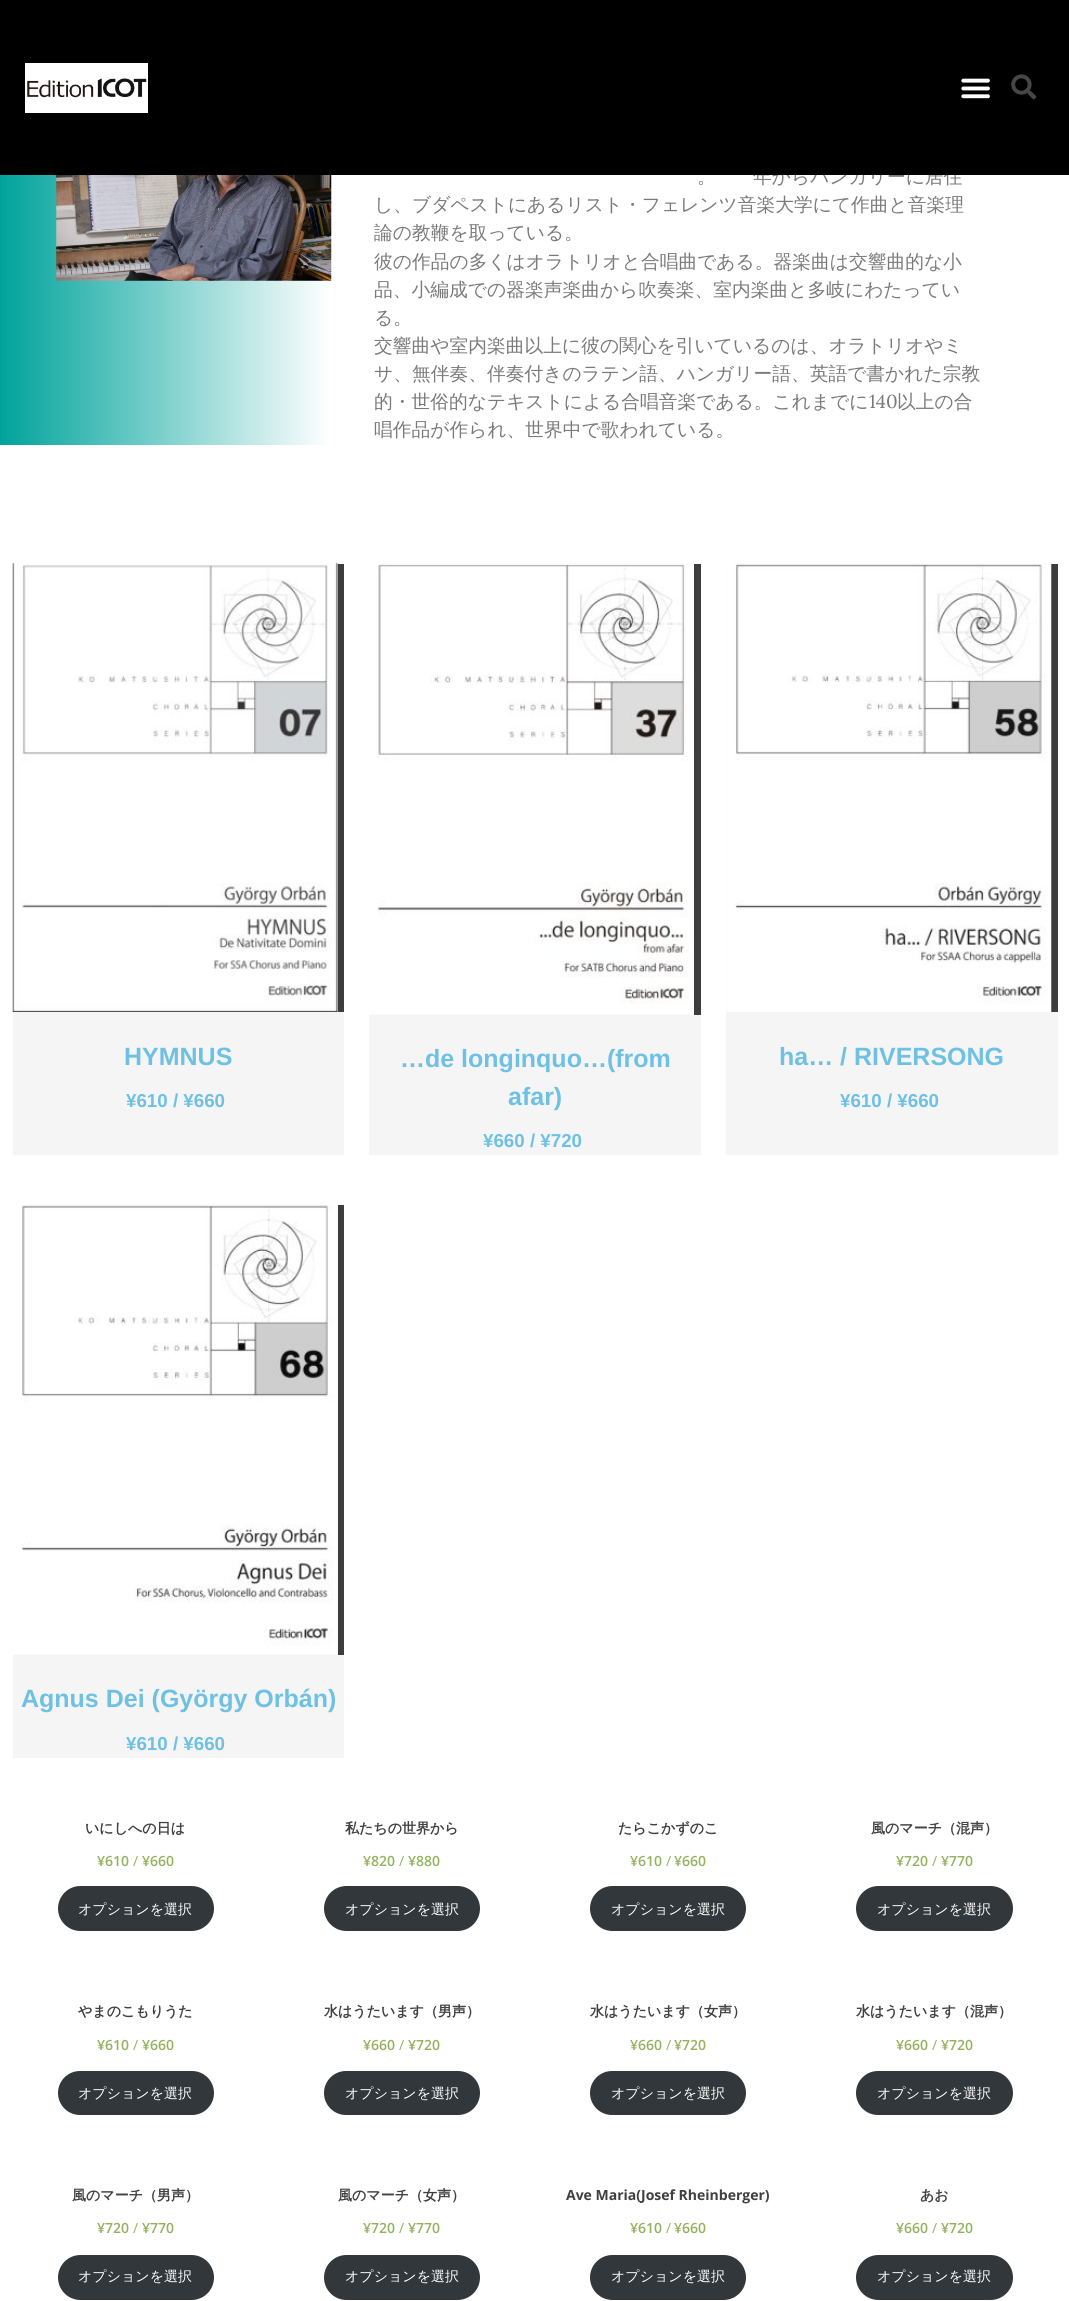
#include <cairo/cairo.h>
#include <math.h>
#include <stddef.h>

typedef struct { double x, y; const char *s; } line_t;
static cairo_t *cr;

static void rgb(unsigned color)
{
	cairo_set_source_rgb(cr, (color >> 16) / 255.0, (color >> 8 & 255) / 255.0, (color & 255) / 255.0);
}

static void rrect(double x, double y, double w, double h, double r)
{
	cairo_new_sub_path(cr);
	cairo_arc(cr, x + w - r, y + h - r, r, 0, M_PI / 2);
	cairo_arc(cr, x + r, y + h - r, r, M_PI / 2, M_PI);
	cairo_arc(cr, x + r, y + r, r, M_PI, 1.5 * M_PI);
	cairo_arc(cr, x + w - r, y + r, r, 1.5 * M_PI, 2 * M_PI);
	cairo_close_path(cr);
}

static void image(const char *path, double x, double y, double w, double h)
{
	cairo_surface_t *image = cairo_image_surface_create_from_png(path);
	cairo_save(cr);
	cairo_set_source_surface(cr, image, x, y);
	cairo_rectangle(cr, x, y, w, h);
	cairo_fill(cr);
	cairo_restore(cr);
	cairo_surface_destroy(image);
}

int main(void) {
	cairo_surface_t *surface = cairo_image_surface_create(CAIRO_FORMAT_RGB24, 1069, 2301);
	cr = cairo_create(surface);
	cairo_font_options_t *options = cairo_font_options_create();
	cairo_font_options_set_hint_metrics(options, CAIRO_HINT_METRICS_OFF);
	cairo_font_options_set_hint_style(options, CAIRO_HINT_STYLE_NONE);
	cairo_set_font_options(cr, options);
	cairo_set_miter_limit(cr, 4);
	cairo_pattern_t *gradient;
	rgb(0xffffff);
	cairo_paint(cr);
	gradient = cairo_pattern_create_linear(0, 189, 331, 189);
	cairo_pattern_add_color_stop_rgba(gradient, 0, 0, 0.639, 0.608, 1);
	cairo_pattern_add_color_stop_rgba(gradient, 1, 1, 1, 1, 1);
	cairo_set_source(cr, gradient);
	cairo_pattern_destroy(gradient);
	cairo_rectangle(cr, 0, 175, 328, 270);
	cairo_fill(cr);
	image("img/4.png", 56, 175, 276, 106);
	rgb(0xf5f5f5);
	cairo_rectangle(cr, 13, 564, 331, 591);
	cairo_fill(cr);
	cairo_save(cr);
	cairo_rectangle(cr, 13, 564, 331, 591);
	cairo_clip(cr);
	rgb(0x3d3d3d);
	cairo_new_path(cr);
	cairo_move_to(cr, 362, 539);
	cairo_line_to(cr, 362, 1012);
	cairo_line_to(cr, 338, 1012);
	cairo_line_to(cr, 338, 554);
	cairo_close_path(cr);
	cairo_fill(cr);
	cairo_restore(cr);
	image("img/5.png", 12, 563, 326, 449);
	cairo_rectangle(cr, 369, 564, 332, 591);
	cairo_fill(cr);
	cairo_save(cr);
	cairo_rectangle(cr, 369, 564, 332, 591);
	cairo_clip(cr);
	rgb(0x3d3d3d);
	cairo_new_path(cr);
	cairo_move_to(cr, 719, 539);
	cairo_line_to(cr, 719, 1015);
	cairo_line_to(cr, 694, 1015);
	cairo_line_to(cr, 694, 554);
	cairo_close_path(cr);
	cairo_fill(cr);
	cairo_restore(cr);
	image("img/6.png", 369, 563, 325, 452);
	cairo_rectangle(cr, 726, 564, 332, 591);
	cairo_fill(cr);
	cairo_save(cr);
	cairo_rectangle(cr, 726, 564, 332, 591);
	cairo_clip(cr);
	rgb(0x3d3d3d);
	cairo_new_path(cr);
	cairo_move_to(cr, 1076, 539);
	cairo_line_to(cr, 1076, 1012);
	cairo_line_to(cr, 1051, 1012);
	cairo_line_to(cr, 1051, 554);
	cairo_close_path(cr);
	cairo_fill(cr);
	cairo_restore(cr);
	image("img/7.png", 726, 563, 326, 449);
	cairo_rectangle(cr, 13, 1205, 331, 553);
	cairo_fill(cr);
	cairo_save(cr);
	cairo_rectangle(cr, 13, 1205, 331, 553);
	cairo_clip(cr);
	rgb(0x3d3d3d);
	cairo_new_path(cr);
	cairo_move_to(cr, 362, 1180);
	cairo_line_to(cr, 362, 1655);
	cairo_line_to(cr, 338, 1655);
	cairo_line_to(cr, 338, 1195);
	cairo_close_path(cr);
	cairo_fill(cr);
	cairo_restore(cr);
	image("img/8.png", 13, 1205, 325, 450);
	rgb(0x32373c);
	rrect(58, 1886, 156, 45, 22.5);
	cairo_fill(cr);
	rrect(324, 1886, 156, 45, 22.5);
	cairo_fill(cr);
	rrect(590, 1886, 156, 45, 22.5);
	cairo_fill(cr);
	rrect(856, 1886, 157, 45, 22.5);
	cairo_fill(cr);
	rrect(58, 2071, 156, 44, 22);
	cairo_fill(cr);
	rrect(324, 2071, 156, 44, 22);
	cairo_fill(cr);
	rrect(590, 2071, 156, 44, 22);
	cairo_fill(cr);
	rrect(856, 2071, 157, 44, 22);
	cairo_fill(cr);
	rrect(58, 2255, 156, 45, 22.5);
	cairo_fill(cr);
	rrect(324, 2255, 156, 45, 22.5);
	cairo_fill(cr);
	rrect(590, 2255, 156, 45, 22.5);
	cairo_fill(cr);
	rrect(856, 2255, 157, 45, 22.5);
	cairo_fill(cr);
	cairo_select_font_face(cr, "WenQuanYi Zen Hei Medium", CAIRO_FONT_SLANT_NORMAL, CAIRO_FONT_WEIGHT_NORMAL);
	cairo_set_font_size(cr, 18.75);
	rgb(0x7a7a7a);
	cairo_move_to(cr, 697, 183);
	cairo_show_text(cr, "。");
	cairo_move_to(cr, 753, 183);
	cairo_show_text(cr, "年からハンガリーに居住");
	rgb(0x000000);
	cairo_rectangle(cr, 0, 0, 1069, 175);
	cairo_fill(cr);
	image("img/3.png", 1011, 74, 26, 26);
	image("img/2.png", 961, 78, 29, 21);
	rgb(0xffffff);
	cairo_rectangle(cr, 25, 63, 123, 50);
	cairo_fill(cr);
	image("img/1.png", 27, 78, 120, 20);
	rgb(0x7a7a7a);
	{
		static const line_t items[] = {
			{374, 211, "し、ブダペストにあるリスト・フェレンツ音楽大学にて作曲と音楽理"},
			{374, 239, "論の教鞭を取っている。"},
			{374, 268, "彼の作品の多くはオラトリオと合唱曲である。器楽曲は交響曲的な小"},
			{374, 296, "品、小編成での器楽声楽曲から吹奏楽、室内楽曲と多岐にわたってい"},
			{374, 324, "る。"},
			{374, 352, "交響曲や室内楽曲以上に彼の関心を引いているのは、オラトリオやミ"},
			{374, 380, "サ、無伴奏、伴奏付きのラテン語、ハンガリー語、英語で書かれた宗教"},
			{374, 408, "的・世俗的なテキストによる合唱音楽である。これまでに"},
		};
		for (size_t i = 0; i < sizeof items / sizeof *items; i++) {
			cairo_move_to(cr, items[i].x, items[i].y);
			cairo_show_text(cr, items[i].s);
		}
	}
	cairo_select_font_face(cr, "Lora", CAIRO_FONT_SLANT_NORMAL, CAIRO_FONT_WEIGHT_NORMAL);
	cairo_move_to(cr, 869, 408);
	cairo_show_text(cr, "140");
	cairo_select_font_face(cr, "WenQuanYi Zen Hei Medium", CAIRO_FONT_SLANT_NORMAL, CAIRO_FONT_WEIGHT_NORMAL);
	cairo_move_to(cr, 897, 408);
	cairo_show_text(cr, "以上の合");
	cairo_move_to(cr, 374, 436);
	cairo_show_text(cr, "唱作品が作られ、世界中で歌われている。");
	cairo_select_font_face(cr, "Liberation Sans", CAIRO_FONT_SLANT_NORMAL, CAIRO_FONT_WEIGHT_BOLD);
	cairo_set_font_size(cr, 25);
	rgb(0x6ec1e4);
	cairo_move_to(cr, 124, 1065);
	cairo_show_text(cr, "HYMNUS");
	cairo_set_font_size(cr, 18.75);
	cairo_move_to(cr, 126, 1107);
	cairo_show_text(cr, "¥610 / ¥660");
	cairo_set_font_size(cr, 25);
	cairo_move_to(cr, 400, 1067);
	cairo_show_text(cr, "…de longinquo…(from");
	cairo_move_to(cr, 508, 1105);
	cairo_show_text(cr, "afar)");
	cairo_set_font_size(cr, 18.75);
	cairo_move_to(cr, 483, 1147);
	cairo_show_text(cr, "¥660 / ¥720");
	cairo_set_font_size(cr, 25);
	cairo_move_to(cr, 779, 1065);
	cairo_show_text(cr, "ha… / RIVERSONG");
	cairo_set_font_size(cr, 18.75);
	cairo_move_to(cr, 840, 1107);
	cairo_show_text(cr, "¥610 / ¥660");
	cairo_set_font_size(cr, 25);
	cairo_move_to(cr, 21, 1707);
	cairo_show_text(cr, "Agnus Dei (György Orbán)");
	cairo_set_font_size(cr, 18.75);
	cairo_move_to(cr, 126, 1750);
	cairo_show_text(cr, "¥610 / ¥660");
	cairo_select_font_face(cr, "WenQuanYi Zen Hei", CAIRO_FONT_SLANT_NORMAL, CAIRO_FONT_WEIGHT_BOLD);
	cairo_set_font_size(cr, 14);
	rgb(0x404040);
	cairo_move_to(cr, 85, 1833);
	cairo_show_text(cr, "いにしへの日は");
	cairo_select_font_face(cr, "Open Sans SemiBold", CAIRO_FONT_SLANT_NORMAL, CAIRO_FONT_WEIGHT_NORMAL);
	rgb(0x93b25e);
	cairo_move_to(cr, 97, 1866);
	cairo_show_text(cr, "¥610");
	cairo_select_font_face(cr, "Open Sans", CAIRO_FONT_SLANT_NORMAL, CAIRO_FONT_WEIGHT_NORMAL);
	cairo_move_to(cr, 133, 1866);
	cairo_show_text(cr, "/");
	cairo_select_font_face(cr, "Open Sans SemiBold", CAIRO_FONT_SLANT_NORMAL, CAIRO_FONT_WEIGHT_NORMAL);
	cairo_move_to(cr, 142, 1866);
	cairo_show_text(cr, "¥660");
	cairo_select_font_face(cr, "WenQuanYi Zen Hei Medium", CAIRO_FONT_SLANT_NORMAL, CAIRO_FONT_WEIGHT_NORMAL);
	rgb(0xffffff);
	cairo_move_to(cr, 78, 1914);
	cairo_show_text(cr, "オプションを選択");
	cairo_select_font_face(cr, "WenQuanYi Zen Hei", CAIRO_FONT_SLANT_NORMAL, CAIRO_FONT_WEIGHT_BOLD);
	rgb(0x404040);
	cairo_move_to(cr, 345, 1833);
	cairo_show_text(cr, "私たちの世界から");
	cairo_select_font_face(cr, "Open Sans SemiBold", CAIRO_FONT_SLANT_NORMAL, CAIRO_FONT_WEIGHT_NORMAL);
	rgb(0x93b25e);
	cairo_move_to(cr, 363, 1866);
	cairo_show_text(cr, "¥820");
	cairo_select_font_face(cr, "Open Sans", CAIRO_FONT_SLANT_NORMAL, CAIRO_FONT_WEIGHT_NORMAL);
	cairo_move_to(cr, 399, 1866);
	cairo_show_text(cr, "/");
	cairo_select_font_face(cr, "Open Sans SemiBold", CAIRO_FONT_SLANT_NORMAL, CAIRO_FONT_WEIGHT_NORMAL);
	cairo_move_to(cr, 408, 1866);
	cairo_show_text(cr, "¥880");
	cairo_select_font_face(cr, "WenQuanYi Zen Hei Medium", CAIRO_FONT_SLANT_NORMAL, CAIRO_FONT_WEIGHT_NORMAL);
	rgb(0xffffff);
	cairo_move_to(cr, 345, 1914);
	cairo_show_text(cr, "オプションを選択");
	cairo_select_font_face(cr, "WenQuanYi Zen Hei", CAIRO_FONT_SLANT_NORMAL, CAIRO_FONT_WEIGHT_BOLD);
	rgb(0x404040);
	cairo_move_to(cr, 618, 1833);
	cairo_show_text(cr, "たらこかずのこ");
	cairo_select_font_face(cr, "Open Sans SemiBold", CAIRO_FONT_SLANT_NORMAL, CAIRO_FONT_WEIGHT_NORMAL);
	rgb(0x93b25e);
	cairo_move_to(cr, 630, 1866);
	cairo_show_text(cr, "¥610");
	cairo_select_font_face(cr, "Open Sans", CAIRO_FONT_SLANT_NORMAL, CAIRO_FONT_WEIGHT_NORMAL);
	cairo_move_to(cr, 666, 1866);
	cairo_show_text(cr, "/");
	cairo_select_font_face(cr, "Open Sans SemiBold", CAIRO_FONT_SLANT_NORMAL, CAIRO_FONT_WEIGHT_NORMAL);
	cairo_move_to(cr, 674, 1866);
	cairo_show_text(cr, "¥660");
	cairo_select_font_face(cr, "WenQuanYi Zen Hei Medium", CAIRO_FONT_SLANT_NORMAL, CAIRO_FONT_WEIGHT_NORMAL);
	rgb(0xffffff);
	cairo_move_to(cr, 611, 1914);
	cairo_show_text(cr, "オプションを選択");
	cairo_select_font_face(cr, "WenQuanYi Zen Hei", CAIRO_FONT_SLANT_NORMAL, CAIRO_FONT_WEIGHT_BOLD);
	rgb(0x404040);
	cairo_move_to(cr, 871, 1833);
	cairo_show_text(cr, "風のマーチ（混声）");
	cairo_select_font_face(cr, "Open Sans SemiBold", CAIRO_FONT_SLANT_NORMAL, CAIRO_FONT_WEIGHT_NORMAL);
	rgb(0x93b25e);
	cairo_move_to(cr, 896, 1866);
	cairo_show_text(cr, "¥720");
	cairo_select_font_face(cr, "Open Sans", CAIRO_FONT_SLANT_NORMAL, CAIRO_FONT_WEIGHT_NORMAL);
	cairo_move_to(cr, 932, 1866);
	cairo_show_text(cr, "/");
	cairo_select_font_face(cr, "Open Sans SemiBold", CAIRO_FONT_SLANT_NORMAL, CAIRO_FONT_WEIGHT_NORMAL);
	cairo_move_to(cr, 941, 1866);
	cairo_show_text(cr, "¥770");
	cairo_select_font_face(cr, "WenQuanYi Zen Hei Medium", CAIRO_FONT_SLANT_NORMAL, CAIRO_FONT_WEIGHT_NORMAL);
	rgb(0xffffff);
	cairo_move_to(cr, 877, 1914);
	cairo_show_text(cr, "オプションを選択");
	cairo_select_font_face(cr, "WenQuanYi Zen Hei", CAIRO_FONT_SLANT_NORMAL, CAIRO_FONT_WEIGHT_BOLD);
	rgb(0x404040);
	cairo_move_to(cr, 78, 2016);
	cairo_show_text(cr, "やまのこもりうた");
	cairo_select_font_face(cr, "Open Sans SemiBold", CAIRO_FONT_SLANT_NORMAL, CAIRO_FONT_WEIGHT_NORMAL);
	rgb(0x93b25e);
	cairo_move_to(cr, 97, 2050);
	cairo_show_text(cr, "¥610");
	cairo_select_font_face(cr, "Open Sans", CAIRO_FONT_SLANT_NORMAL, CAIRO_FONT_WEIGHT_NORMAL);
	cairo_move_to(cr, 133, 2050);
	cairo_show_text(cr, "/");
	cairo_select_font_face(cr, "Open Sans SemiBold", CAIRO_FONT_SLANT_NORMAL, CAIRO_FONT_WEIGHT_NORMAL);
	cairo_move_to(cr, 142, 2050);
	cairo_show_text(cr, "¥660");
	cairo_select_font_face(cr, "WenQuanYi Zen Hei Medium", CAIRO_FONT_SLANT_NORMAL, CAIRO_FONT_WEIGHT_NORMAL);
	rgb(0xffffff);
	cairo_move_to(cr, 78, 2098);
	cairo_show_text(cr, "オプションを選択");
	cairo_select_font_face(cr, "WenQuanYi Zen Hei", CAIRO_FONT_SLANT_NORMAL, CAIRO_FONT_WEIGHT_BOLD);
	rgb(0x404040);
	cairo_move_to(cr, 324, 2016);
	cairo_show_text(cr, "水はうたいます（男声）");
	cairo_select_font_face(cr, "Open Sans SemiBold", CAIRO_FONT_SLANT_NORMAL, CAIRO_FONT_WEIGHT_NORMAL);
	rgb(0x93b25e);
	cairo_move_to(cr, 363, 2050);
	cairo_show_text(cr, "¥660");
	cairo_select_font_face(cr, "Open Sans", CAIRO_FONT_SLANT_NORMAL, CAIRO_FONT_WEIGHT_NORMAL);
	cairo_move_to(cr, 399, 2050);
	cairo_show_text(cr, "/");
	cairo_select_font_face(cr, "Open Sans SemiBold", CAIRO_FONT_SLANT_NORMAL, CAIRO_FONT_WEIGHT_NORMAL);
	cairo_move_to(cr, 408, 2050);
	cairo_show_text(cr, "¥720");
	cairo_select_font_face(cr, "WenQuanYi Zen Hei Medium", CAIRO_FONT_SLANT_NORMAL, CAIRO_FONT_WEIGHT_NORMAL);
	rgb(0xffffff);
	cairo_move_to(cr, 345, 2098);
	cairo_show_text(cr, "オプションを選択");
	cairo_select_font_face(cr, "WenQuanYi Zen Hei", CAIRO_FONT_SLANT_NORMAL, CAIRO_FONT_WEIGHT_BOLD);
	rgb(0x404040);
	cairo_move_to(cr, 590, 2016);
	cairo_show_text(cr, "水はうたいます（女声）");
	cairo_select_font_face(cr, "Open Sans SemiBold", CAIRO_FONT_SLANT_NORMAL, CAIRO_FONT_WEIGHT_NORMAL);
	rgb(0x93b25e);
	cairo_move_to(cr, 630, 2050);
	cairo_show_text(cr, "¥660");
	cairo_select_font_face(cr, "Open Sans", CAIRO_FONT_SLANT_NORMAL, CAIRO_FONT_WEIGHT_NORMAL);
	cairo_move_to(cr, 666, 2050);
	cairo_show_text(cr, "/");
	cairo_select_font_face(cr, "Open Sans SemiBold", CAIRO_FONT_SLANT_NORMAL, CAIRO_FONT_WEIGHT_NORMAL);
	cairo_move_to(cr, 674, 2050);
	cairo_show_text(cr, "¥720");
	cairo_select_font_face(cr, "WenQuanYi Zen Hei Medium", CAIRO_FONT_SLANT_NORMAL, CAIRO_FONT_WEIGHT_NORMAL);
	rgb(0xffffff);
	cairo_move_to(cr, 611, 2098);
	cairo_show_text(cr, "オプションを選択");
	cairo_select_font_face(cr, "WenQuanYi Zen Hei", CAIRO_FONT_SLANT_NORMAL, CAIRO_FONT_WEIGHT_BOLD);
	rgb(0x404040);
	cairo_move_to(cr, 856, 2016);
	cairo_show_text(cr, "水はうたいます（混声）");
	cairo_select_font_face(cr, "Open Sans SemiBold", CAIRO_FONT_SLANT_NORMAL, CAIRO_FONT_WEIGHT_NORMAL);
	rgb(0x93b25e);
	cairo_move_to(cr, 896, 2050);
	cairo_show_text(cr, "¥660");
	cairo_select_font_face(cr, "Open Sans", CAIRO_FONT_SLANT_NORMAL, CAIRO_FONT_WEIGHT_NORMAL);
	cairo_move_to(cr, 932, 2050);
	cairo_show_text(cr, "/");
	cairo_select_font_face(cr, "Open Sans SemiBold", CAIRO_FONT_SLANT_NORMAL, CAIRO_FONT_WEIGHT_NORMAL);
	cairo_move_to(cr, 941, 2050);
	cairo_show_text(cr, "¥720");
	cairo_select_font_face(cr, "WenQuanYi Zen Hei Medium", CAIRO_FONT_SLANT_NORMAL, CAIRO_FONT_WEIGHT_NORMAL);
	rgb(0xffffff);
	cairo_move_to(cr, 877, 2098);
	cairo_show_text(cr, "オプションを選択");
	cairo_select_font_face(cr, "WenQuanYi Zen Hei", CAIRO_FONT_SLANT_NORMAL, CAIRO_FONT_WEIGHT_BOLD);
	rgb(0x404040);
	cairo_move_to(cr, 72, 2200);
	cairo_show_text(cr, "風のマーチ（男声）");
	cairo_select_font_face(cr, "Open Sans SemiBold", CAIRO_FONT_SLANT_NORMAL, CAIRO_FONT_WEIGHT_NORMAL);
	rgb(0x93b25e);
	cairo_move_to(cr, 97, 2233);
	cairo_show_text(cr, "¥720");
	cairo_select_font_face(cr, "Open Sans", CAIRO_FONT_SLANT_NORMAL, CAIRO_FONT_WEIGHT_NORMAL);
	cairo_move_to(cr, 133, 2233);
	cairo_show_text(cr, "/");
	cairo_select_font_face(cr, "Open Sans SemiBold", CAIRO_FONT_SLANT_NORMAL, CAIRO_FONT_WEIGHT_NORMAL);
	cairo_move_to(cr, 142, 2233);
	cairo_show_text(cr, "¥770");
	cairo_select_font_face(cr, "WenQuanYi Zen Hei Medium", CAIRO_FONT_SLANT_NORMAL, CAIRO_FONT_WEIGHT_NORMAL);
	rgb(0xffffff);
	cairo_move_to(cr, 78, 2281);
	cairo_show_text(cr, "オプションを選択");
	cairo_select_font_face(cr, "WenQuanYi Zen Hei", CAIRO_FONT_SLANT_NORMAL, CAIRO_FONT_WEIGHT_BOLD);
	rgb(0x404040);
	cairo_move_to(cr, 338, 2200);
	cairo_show_text(cr, "風のマーチ（女声）");
	cairo_select_font_face(cr, "Open Sans SemiBold", CAIRO_FONT_SLANT_NORMAL, CAIRO_FONT_WEIGHT_NORMAL);
	rgb(0x93b25e);
	cairo_move_to(cr, 363, 2233);
	cairo_show_text(cr, "¥720");
	cairo_select_font_face(cr, "Open Sans", CAIRO_FONT_SLANT_NORMAL, CAIRO_FONT_WEIGHT_NORMAL);
	cairo_move_to(cr, 399, 2233);
	cairo_show_text(cr, "/");
	cairo_select_font_face(cr, "Open Sans SemiBold", CAIRO_FONT_SLANT_NORMAL, CAIRO_FONT_WEIGHT_NORMAL);
	cairo_move_to(cr, 408, 2233);
	cairo_show_text(cr, "¥770");
	cairo_select_font_face(cr, "WenQuanYi Zen Hei Medium", CAIRO_FONT_SLANT_NORMAL, CAIRO_FONT_WEIGHT_NORMAL);
	rgb(0xffffff);
	cairo_move_to(cr, 345, 2281);
	cairo_show_text(cr, "オプションを選択");
	cairo_select_font_face(cr, "Open Sans", CAIRO_FONT_SLANT_NORMAL, CAIRO_FONT_WEIGHT_BOLD);
	rgb(0x404040);
	cairo_move_to(cr, 566, 2200);
	cairo_show_text(cr, "Ave Maria(Josef Rheinberger)");
	cairo_select_font_face(cr, "Open Sans SemiBold", CAIRO_FONT_SLANT_NORMAL, CAIRO_FONT_WEIGHT_NORMAL);
	rgb(0x93b25e);
	cairo_move_to(cr, 630, 2233);
	cairo_show_text(cr, "¥610");
	cairo_select_font_face(cr, "Open Sans", CAIRO_FONT_SLANT_NORMAL, CAIRO_FONT_WEIGHT_NORMAL);
	cairo_move_to(cr, 666, 2233);
	cairo_show_text(cr, "/");
	cairo_select_font_face(cr, "Open Sans SemiBold", CAIRO_FONT_SLANT_NORMAL, CAIRO_FONT_WEIGHT_NORMAL);
	cairo_move_to(cr, 674, 2233);
	cairo_show_text(cr, "¥660");
	cairo_select_font_face(cr, "WenQuanYi Zen Hei Medium", CAIRO_FONT_SLANT_NORMAL, CAIRO_FONT_WEIGHT_NORMAL);
	rgb(0xffffff);
	cairo_move_to(cr, 611, 2281);
	cairo_show_text(cr, "オプションを選択");
	cairo_select_font_face(cr, "WenQuanYi Zen Hei", CAIRO_FONT_SLANT_NORMAL, CAIRO_FONT_WEIGHT_BOLD);
	rgb(0x404040);
	cairo_move_to(cr, 920, 2200);
	cairo_show_text(cr, "あお");
	cairo_select_font_face(cr, "Open Sans SemiBold", CAIRO_FONT_SLANT_NORMAL, CAIRO_FONT_WEIGHT_NORMAL);
	rgb(0x93b25e);
	cairo_move_to(cr, 896, 2233);
	cairo_show_text(cr, "¥660");
	cairo_select_font_face(cr, "Open Sans", CAIRO_FONT_SLANT_NORMAL, CAIRO_FONT_WEIGHT_NORMAL);
	cairo_move_to(cr, 932, 2233);
	cairo_show_text(cr, "/");
	cairo_select_font_face(cr, "Open Sans SemiBold", CAIRO_FONT_SLANT_NORMAL, CAIRO_FONT_WEIGHT_NORMAL);
	cairo_move_to(cr, 941, 2233);
	cairo_show_text(cr, "¥720");
	cairo_select_font_face(cr, "WenQuanYi Zen Hei Medium", CAIRO_FONT_SLANT_NORMAL, CAIRO_FONT_WEIGHT_NORMAL);
	rgb(0xffffff);
	cairo_move_to(cr, 877, 2281);
	cairo_show_text(cr, "オプションを選択");
	cairo_surface_write_to_png(surface, "page.png");
	cairo_font_options_destroy(options);
	cairo_destroy(cr);
	cairo_surface_destroy(surface);
	return 0;
}
